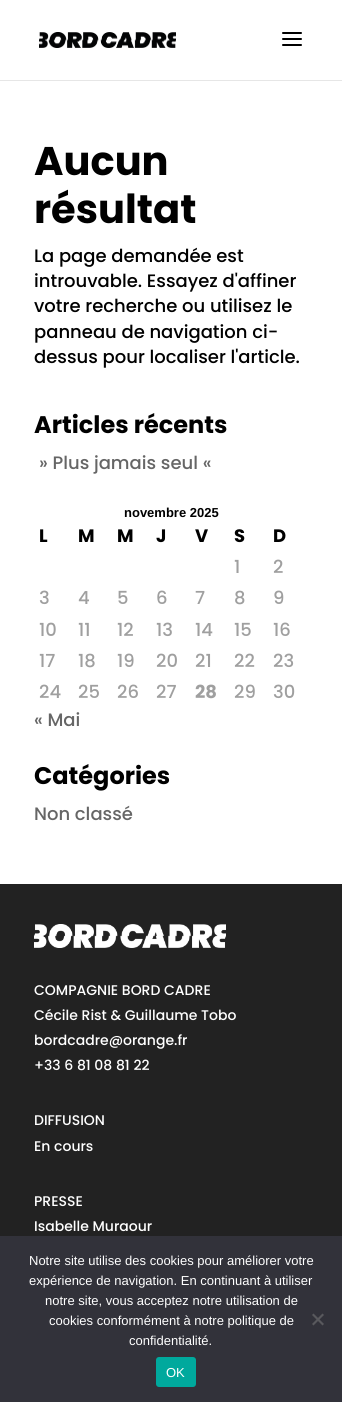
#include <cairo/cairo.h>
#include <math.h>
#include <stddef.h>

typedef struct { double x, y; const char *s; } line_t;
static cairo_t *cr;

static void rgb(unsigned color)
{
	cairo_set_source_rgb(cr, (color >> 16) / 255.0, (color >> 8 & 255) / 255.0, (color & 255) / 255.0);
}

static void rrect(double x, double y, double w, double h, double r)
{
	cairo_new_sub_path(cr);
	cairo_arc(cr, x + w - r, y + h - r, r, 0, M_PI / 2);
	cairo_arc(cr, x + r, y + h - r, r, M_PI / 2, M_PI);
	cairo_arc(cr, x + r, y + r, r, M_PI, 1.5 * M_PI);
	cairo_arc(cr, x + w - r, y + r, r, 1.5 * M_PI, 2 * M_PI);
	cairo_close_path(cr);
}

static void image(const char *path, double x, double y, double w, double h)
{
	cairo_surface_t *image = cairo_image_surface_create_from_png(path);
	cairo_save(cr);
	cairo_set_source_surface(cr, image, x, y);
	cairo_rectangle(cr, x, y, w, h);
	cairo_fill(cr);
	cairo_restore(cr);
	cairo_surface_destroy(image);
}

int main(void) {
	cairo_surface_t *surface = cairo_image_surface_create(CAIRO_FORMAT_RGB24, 342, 1402);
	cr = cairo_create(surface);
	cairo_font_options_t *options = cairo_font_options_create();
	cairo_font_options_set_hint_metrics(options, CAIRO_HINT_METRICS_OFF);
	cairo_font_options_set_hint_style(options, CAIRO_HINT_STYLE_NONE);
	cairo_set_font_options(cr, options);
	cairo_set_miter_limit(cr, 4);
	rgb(0xffffff);
	cairo_paint(cr);
	rgb(0xe6e6e6);
	cairo_rectangle(cr, 0, 80, 342, 1);
	cairo_fill(cr);
	image("img/1.png", 39, 32, 137, 16);
	image("img/2.png", 282, 32, 20, 14);
	rgb(0x222222);
	cairo_rectangle(cr, 0, 884, 342, 352);
	cairo_fill(cr);
	image("img/3.png", 34, 924, 192, 24);
	rgb(0x32323a);
	cairo_rectangle(cr, 0, 1236, 342, 166);
	cairo_fill(cr);
	rgb(0x59595d);
	cairo_new_path(cr);
	cairo_move_to(cr, 322.5, 1313.5);
	cairo_line_to(cr, 324, 1315);
	cairo_line_to(cr, 313.5, 1325.5);
	cairo_line_to(cr, 312, 1324);
	cairo_close_path(cr);
	cairo_fill(cr);
	cairo_new_path(cr);
	cairo_move_to(cr, 312, 1315);
	cairo_line_to(cr, 313.5, 1313.5);
	cairo_line_to(cr, 324, 1324);
	cairo_line_to(cr, 322.5, 1325.5);
	cairo_close_path(cr);
	cairo_fill(cr);
	rgb(0x00a99d);
	rrect(156, 1357, 40, 30, 3);
	cairo_fill(cr);
	cairo_select_font_face(cr, "Poppins", CAIRO_FONT_SLANT_NORMAL, CAIRO_FONT_WEIGHT_BOLD);
	cairo_set_font_size(cr, 40);
	rgb(0x000000);
	cairo_move_to(cr, 34, 175);
	cairo_show_text(cr, "Aucun");
	cairo_move_to(cr, 34, 223);
	cairo_show_text(cr, "résultat");
	cairo_select_font_face(cr, "Poppins Medium", CAIRO_FONT_SLANT_NORMAL, CAIRO_FONT_WEIGHT_NORMAL);
	cairo_set_font_size(cr, 18);
	{
		static const line_t items[] = {
			{34, 262, "La page demandée est"},
			{34, 287, "introuvable. Essayez d'affiner"},
			{34, 312, "votre recherche ou utilisez le"},
			{34, 338, "panneau de navigation ci-"},
			{34, 363, "dessus pour localiser l'article."},
		};
		for (size_t i = 0; i < sizeof items / sizeof *items; i++) {
			cairo_move_to(cr, items[i].x, items[i].y);
			cairo_show_text(cr, items[i].s);
		}
	}
	cairo_select_font_face(cr, "Poppins", CAIRO_FONT_SLANT_NORMAL, CAIRO_FONT_WEIGHT_BOLD);
	cairo_set_font_size(cr, 24);
	cairo_move_to(cr, 34, 433);
	cairo_show_text(cr, "Articles récents");
	cairo_select_font_face(cr, "Poppins Medium", CAIRO_FONT_SLANT_NORMAL, CAIRO_FONT_WEIGHT_NORMAL);
	cairo_set_font_size(cr, 18);
	rgb(0x666666);
	cairo_move_to(cr, 39, 469);
	cairo_show_text(cr, "» Plus jamais seul «");
	cairo_select_font_face(cr, "Liberation Sans", CAIRO_FONT_SLANT_NORMAL, CAIRO_FONT_WEIGHT_BOLD);
	cairo_set_font_size(cr, 13);
	rgb(0x000000);
	cairo_move_to(cr, 124, 517);
	cairo_show_text(cr, "novembre 2025");
	cairo_select_font_face(cr, "Poppins", CAIRO_FONT_SLANT_NORMAL, CAIRO_FONT_WEIGHT_BOLD);
	cairo_set_font_size(cr, 18);
	{
		static const line_t items[] = {
			{39, 542, "L"},
			{78, 542, "M"},
			{117, 542, "M"},
			{156, 542, "J"},
			{195, 542, "V"},
			{234, 542, "S"},
			{273, 542, "D"},
		};
		for (size_t i = 0; i < sizeof items / sizeof *items; i++) {
			cairo_move_to(cr, items[i].x, items[i].y);
			cairo_show_text(cr, items[i].s);
		}
	}
	cairo_select_font_face(cr, "Poppins Medium", CAIRO_FONT_SLANT_NORMAL, CAIRO_FONT_WEIGHT_NORMAL);
	rgb(0x9f9f9f);
	{
		static const line_t items[] = {
			{234, 573, "1"},
			{273, 573, "2"},
			{39, 604, "3"},
			{78, 604, "4"},
			{117, 604, "5"},
			{156, 604, "6"},
			{195, 604, "7"},
			{234, 604, "8"},
			{273, 604, "9"},
			{39, 636, "10"},
			{78, 636, "11"},
			{117, 636, "12"},
			{156, 636, "13"},
			{195, 636, "14"},
			{234, 636, "15"},
			{273, 636, "16"},
			{39, 667, "17"},
			{78, 667, "18"},
			{117, 667, "19"},
			{156, 667, "20"},
			{195, 667, "21"},
			{234, 667, "22"},
			{273, 667, "23"},
			{39, 698, "24"},
			{78, 698, "25"},
			{117, 698, "26"},
			{156, 698, "27"},
		};
		for (size_t i = 0; i < sizeof items / sizeof *items; i++) {
			cairo_move_to(cr, items[i].x, items[i].y);
			cairo_show_text(cr, items[i].s);
		}
	}
	cairo_select_font_face(cr, "Poppins", CAIRO_FONT_SLANT_NORMAL, CAIRO_FONT_WEIGHT_BOLD);
	cairo_move_to(cr, 195, 698);
	cairo_show_text(cr, "28");
	cairo_select_font_face(cr, "Poppins Medium", CAIRO_FONT_SLANT_NORMAL, CAIRO_FONT_WEIGHT_NORMAL);
	cairo_move_to(cr, 234, 698);
	cairo_show_text(cr, "29");
	cairo_move_to(cr, 273, 698);
	cairo_show_text(cr, "30");
	rgb(0x666666);
	cairo_move_to(cr, 34, 726);
	cairo_show_text(cr, "« Mai");
	cairo_select_font_face(cr, "Poppins", CAIRO_FONT_SLANT_NORMAL, CAIRO_FONT_WEIGHT_BOLD);
	cairo_set_font_size(cr, 24);
	rgb(0x000000);
	cairo_move_to(cr, 34, 784);
	cairo_show_text(cr, "Catégories");
	cairo_select_font_face(cr, "Poppins Medium", CAIRO_FONT_SLANT_NORMAL, CAIRO_FONT_WEIGHT_NORMAL);
	cairo_set_font_size(cr, 18);
	rgb(0x666666);
	cairo_move_to(cr, 34, 820);
	cairo_show_text(cr, "Non classé");
	cairo_set_font_size(cr, 14);
	rgb(0xffffff);
	{
		static const line_t items[] = {
			{34, 995, "COMPAGNIE BORD CADRE"},
			{34, 1020, "Cécile Rist & Guillaume Tobo"},
			{34, 1045, "bordcadre@orange.fr"},
			{34, 1070, "+33 6 81 08 81 22"},
			{34, 1125, "DIFFUSION"},
			{34, 1151, "En cours"},
			{34, 1206, "PRESSE"},
			{34, 1231, "Isabelle Muraour"},
		};
		for (size_t i = 0; i < sizeof items / sizeof *items; i++) {
			cairo_move_to(cr, items[i].x, items[i].y);
			cairo_show_text(cr, items[i].s);
		}
	}
	cairo_select_font_face(cr, "Liberation Sans", CAIRO_FONT_SLANT_NORMAL, CAIRO_FONT_WEIGHT_NORMAL);
	cairo_set_font_size(cr, 13);
	{
		static const line_t items[] = {
			{29, 1265, "Notre site utilise des cookies pour améliorer votre"},
			{29, 1285, "expérience de navigation. En continuant à utiliser"},
			{45, 1305, "notre site, vous acceptez notre utilisation de"},
			{49, 1325, "cookies conformément à notre politique de"},
			{129, 1345, "confidentialité."},
			{166, 1377, "OK"},
		};
		for (size_t i = 0; i < sizeof items / sizeof *items; i++) {
			cairo_move_to(cr, items[i].x, items[i].y);
			cairo_show_text(cr, items[i].s);
		}
	}
	cairo_surface_write_to_png(surface, "page.png");
	cairo_font_options_destroy(options);
	cairo_destroy(cr);
	cairo_surface_destroy(surface);
	return 0;
}
